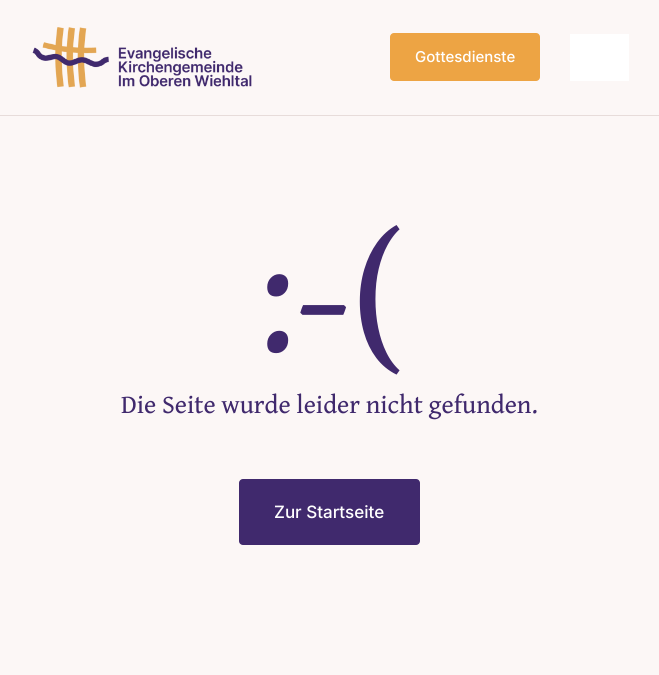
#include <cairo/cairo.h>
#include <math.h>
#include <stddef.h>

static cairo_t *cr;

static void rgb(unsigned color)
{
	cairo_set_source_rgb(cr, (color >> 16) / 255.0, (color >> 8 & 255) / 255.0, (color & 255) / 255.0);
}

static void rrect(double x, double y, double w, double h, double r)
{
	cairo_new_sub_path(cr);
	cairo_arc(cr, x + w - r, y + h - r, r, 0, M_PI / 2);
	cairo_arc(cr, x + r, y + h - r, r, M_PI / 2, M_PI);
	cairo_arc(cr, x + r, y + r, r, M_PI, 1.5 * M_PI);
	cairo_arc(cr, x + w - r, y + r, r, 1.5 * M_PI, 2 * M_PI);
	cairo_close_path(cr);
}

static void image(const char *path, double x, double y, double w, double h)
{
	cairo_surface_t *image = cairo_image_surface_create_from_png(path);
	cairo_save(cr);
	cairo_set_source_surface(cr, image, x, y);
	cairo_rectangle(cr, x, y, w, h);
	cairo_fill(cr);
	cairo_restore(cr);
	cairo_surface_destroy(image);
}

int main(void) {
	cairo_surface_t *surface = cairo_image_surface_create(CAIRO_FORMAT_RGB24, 659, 675);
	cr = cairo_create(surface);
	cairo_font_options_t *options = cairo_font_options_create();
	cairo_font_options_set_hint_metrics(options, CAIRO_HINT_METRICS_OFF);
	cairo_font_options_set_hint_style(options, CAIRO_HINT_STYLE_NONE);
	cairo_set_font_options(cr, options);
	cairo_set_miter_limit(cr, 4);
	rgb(0xfcf7f6);
	cairo_paint(cr);
	image("img/1.png", 32, 27, 220, 61);
	rgb(0xeda444);
	rrect(390, 33, 150, 48, 4);
	cairo_fill(cr);
	rgb(0xffffff);
	cairo_rectangle(cr, 570, 34, 59, 47);
	cairo_fill(cr);
	rgb(0xe7dcda);
	cairo_rectangle(cr, 0, 115, 659, 1);
	cairo_fill(cr);
	rgb(0x40296d);
	rrect(239, 479, 181, 66, 4);
	cairo_fill(cr);
	cairo_select_font_face(cr, "Inter Medium", CAIRO_FONT_SLANT_NORMAL, CAIRO_FONT_WEIGHT_NORMAL);
	cairo_set_font_size(cr, 15);
	rgb(0xffffff);
	cairo_move_to(cr, 415, 62);
	cairo_show_text(cr, "Gottesdienste");
	cairo_select_font_face(cr, "Gentium Book Plus", CAIRO_FONT_SLANT_NORMAL, CAIRO_FONT_WEIGHT_NORMAL);
	cairo_set_font_size(cr, 160);
	rgb(0x40296d);
	cairo_move_to(cr, 257, 350);
	cairo_show_text(cr, ":-(");
	cairo_set_font_size(cr, 26);
	cairo_move_to(cr, 121, 413);
	cairo_show_text(cr, "Die Seite wurde leider nicht gefunden.");
	cairo_select_font_face(cr, "Inter Medium", CAIRO_FONT_SLANT_NORMAL, CAIRO_FONT_WEIGHT_NORMAL);
	cairo_set_font_size(cr, 17);
	rgb(0xffffff);
	cairo_move_to(cr, 274, 518);
	cairo_show_text(cr, "Zur Startseite");
	cairo_surface_write_to_png(surface, "page.png");
	cairo_font_options_destroy(options);
	cairo_destroy(cr);
	cairo_surface_destroy(surface);
	return 0;
}
